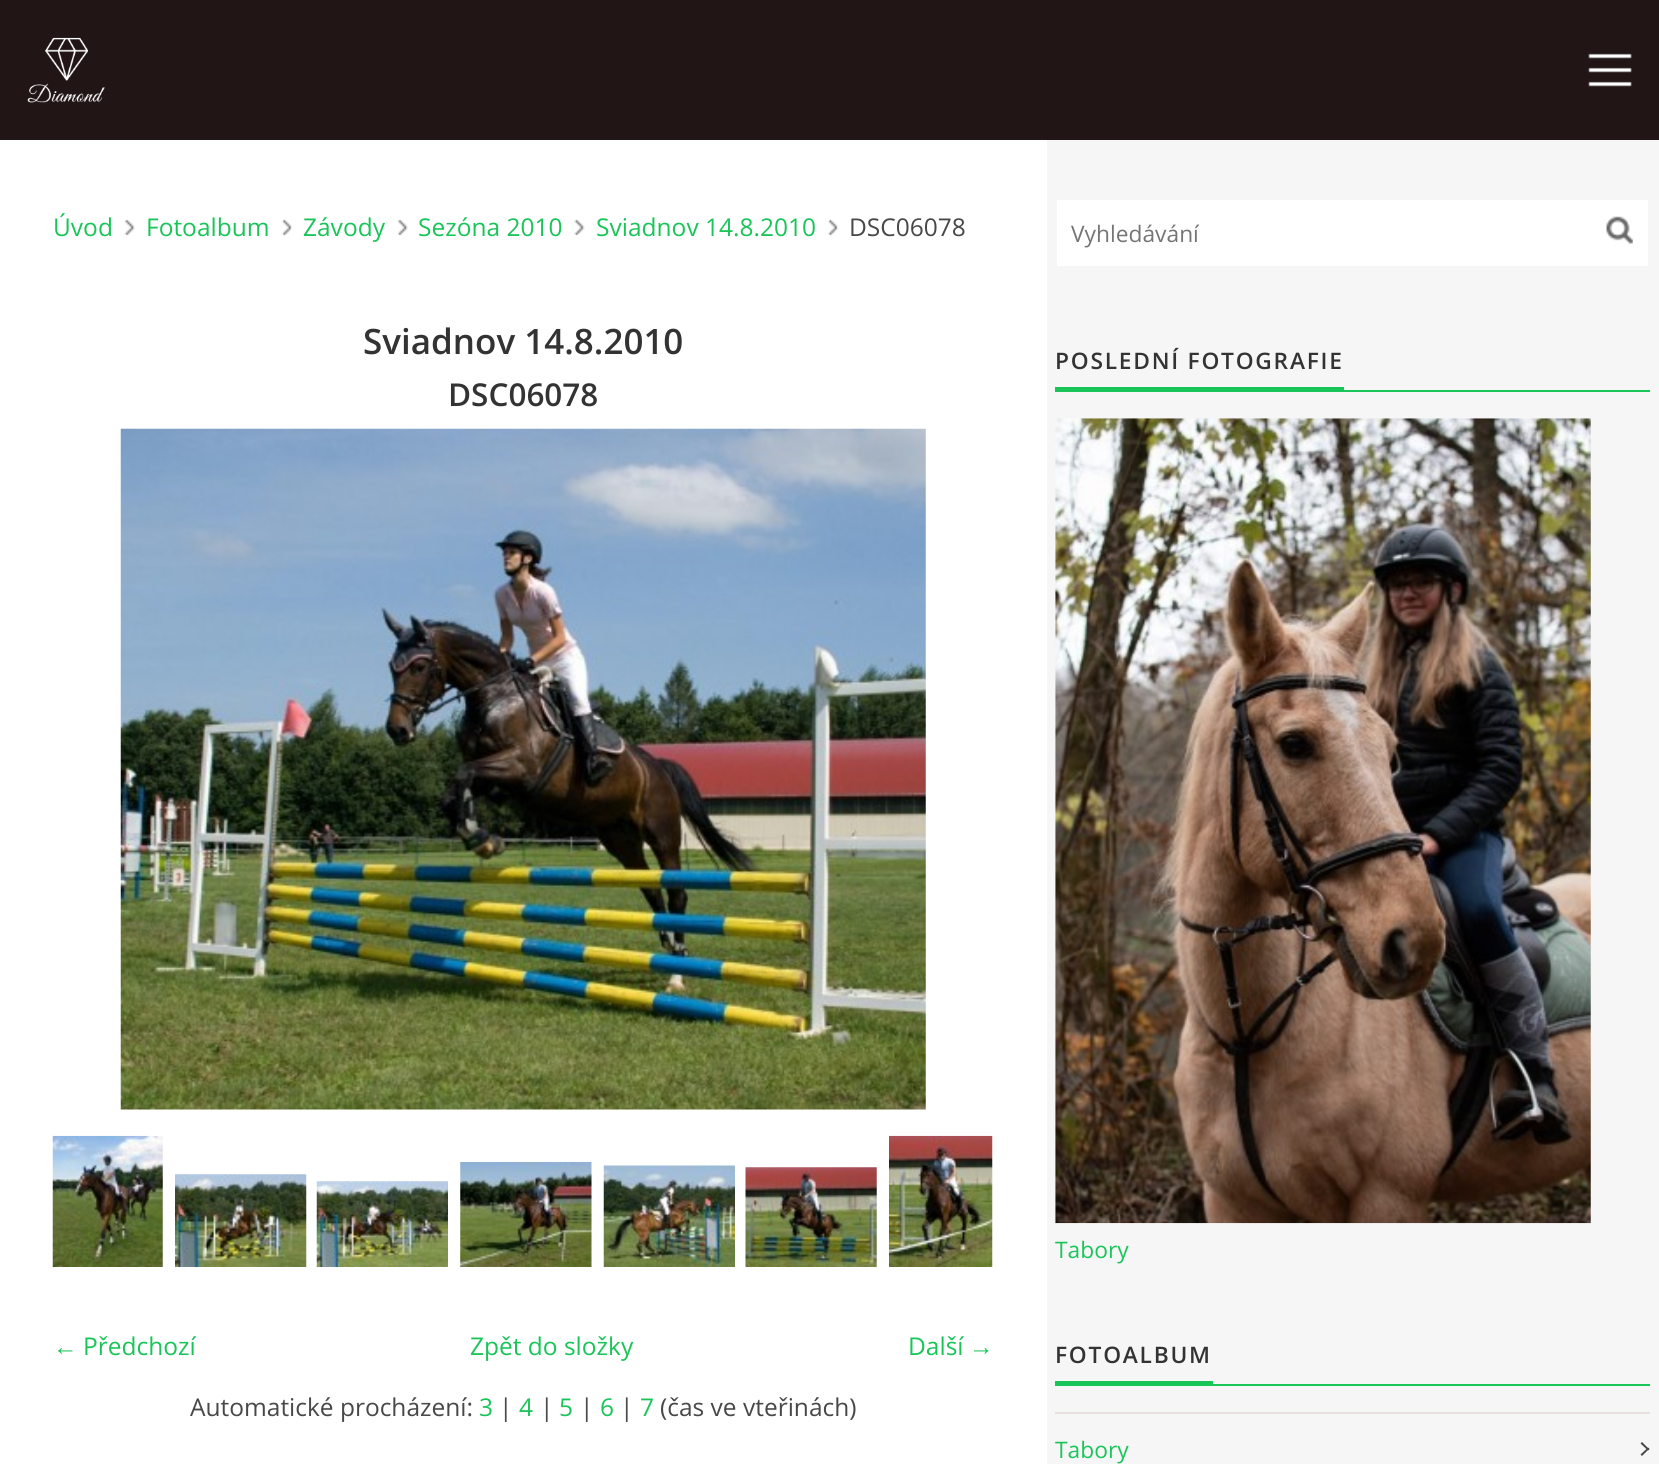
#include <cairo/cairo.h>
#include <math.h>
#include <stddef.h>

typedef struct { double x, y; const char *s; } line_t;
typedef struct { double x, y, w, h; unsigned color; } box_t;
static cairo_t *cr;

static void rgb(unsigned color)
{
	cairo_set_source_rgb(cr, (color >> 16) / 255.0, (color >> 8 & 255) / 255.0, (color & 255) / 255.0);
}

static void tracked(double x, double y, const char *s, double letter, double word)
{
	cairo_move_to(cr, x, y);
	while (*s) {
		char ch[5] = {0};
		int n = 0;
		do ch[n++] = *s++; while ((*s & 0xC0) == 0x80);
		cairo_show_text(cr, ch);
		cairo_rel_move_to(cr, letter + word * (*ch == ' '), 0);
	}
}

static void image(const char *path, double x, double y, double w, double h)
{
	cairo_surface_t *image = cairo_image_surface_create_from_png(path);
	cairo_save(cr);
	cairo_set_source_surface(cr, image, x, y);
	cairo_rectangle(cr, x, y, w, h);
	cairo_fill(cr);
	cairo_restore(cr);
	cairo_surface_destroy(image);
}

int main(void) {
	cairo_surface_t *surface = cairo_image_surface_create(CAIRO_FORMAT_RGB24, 1659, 1464);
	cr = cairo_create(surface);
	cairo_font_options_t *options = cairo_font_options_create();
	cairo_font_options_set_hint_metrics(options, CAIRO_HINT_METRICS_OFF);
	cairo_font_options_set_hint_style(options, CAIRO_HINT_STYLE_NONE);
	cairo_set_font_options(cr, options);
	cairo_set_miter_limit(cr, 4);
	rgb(0xffffff);
	cairo_paint(cr);
	rgb(0x211515);
	cairo_rectangle(cr, 0, 0, 1659, 140);
	cairo_fill(cr);
	image("img/1.png", 27, 37, 78, 66);
	image("img/2.png", 1588, 53, 44, 34);
	image("img/3.png", 124, 219, 11, 17);
	image("img/4.png", 281, 218, 12, 19);
	image("img/3.png", 397, 219, 11, 17);
	image("img/5.png", 574, 219, 11, 17);
	image("img/6.png", 827, 218, 12, 19);
	image("img/7.png", 120, 428, 806, 682);
	image("img/8.png", 52, 1135, 111, 132);
	image("img/9.png", 175, 1174, 132, 93);
	image("img/10.png", 316, 1181, 132, 86);
	image("img/11.png", 460, 1162, 132, 105);
	image("img/12.png", 603, 1165, 132, 102);
	image("img/13.png", 745, 1167, 132, 100);
	image("img/14.png", 889, 1135, 104, 132);
	rgb(0xf6f6f6);
	cairo_rectangle(cr, 1047, 140, 612, 1324);
	cairo_fill(cr);
	rgb(0xffffff);
	cairo_rectangle(cr, 1057, 200, 591, 66);
	cairo_fill(cr);
	image("img/15.png", 1606, 216, 27, 28);
	rgb(0x19c559);
	cairo_rectangle(cr, 1055, 387, 289, 3);
	cairo_fill(cr);
	cairo_rectangle(cr, 1055, 390, 595, 2);
	cairo_fill(cr);
	image("img/16.png", 1055, 418, 536, 806);
	{
		static const box_t items[] = {
			{1055, 1381, 158, 3, 0x19c559},
			{1055, 1384, 595, 2, 0x19c559},
			{1055, 1412, 595, 2, 0xe8dfdf},
		};
		for (size_t i = 0; i < sizeof items / sizeof *items; i++) {
			rgb(items[i].color);
			cairo_rectangle(cr, items[i].x, items[i].y, items[i].w, items[i].h);
			cairo_fill(cr);
		}
	}
	rgb(0x484848);
	cairo_new_path(cr);
	cairo_move_to(cr, 1642, 1442);
	cairo_line_to(cr, 1649.5, 1449.5);
	cairo_line_to(cr, 1648, 1450.5);
	cairo_line_to(cr, 1640.5, 1443.5);
	cairo_close_path(cr);
	cairo_fill(cr);
	cairo_new_path(cr);
	cairo_move_to(cr, 1640.5, 1454.5);
	cairo_line_to(cr, 1648, 1447.5);
	cairo_line_to(cr, 1649.5, 1448.5);
	cairo_line_to(cr, 1642, 1456);
	cairo_close_path(cr);
	cairo_fill(cr);
	cairo_select_font_face(cr, "Open Sans", CAIRO_FONT_SLANT_NORMAL, CAIRO_FONT_WEIGHT_NORMAL);
	cairo_set_font_size(cr, 24.5);
	rgb(0x19c559);
	{
		static const line_t items[] = {
			{53, 236, "Úvod"},
			{146, 236, "Fotoalbum"},
			{303, 236, "Závody"},
			{418, 236, "Sezóna 2010"},
			{596, 236, "Sviadnov 14.8.2010"},
		};
		for (size_t i = 0; i < sizeof items / sizeof *items; i++) {
			cairo_move_to(cr, items[i].x, items[i].y);
			cairo_show_text(cr, items[i].s);
		}
	}
	rgb(0x484848);
	cairo_move_to(cr, 849, 236);
	cairo_show_text(cr, "DSC06078");
	cairo_select_font_face(cr, "Open Sans SemiBold", CAIRO_FONT_SLANT_NORMAL, CAIRO_FONT_WEIGHT_NORMAL);
	cairo_set_font_size(cr, 35);
	rgb(0x333333);
	cairo_move_to(cr, 363, 354);
	cairo_show_text(cr, "Sviadnov 14.8.2010");
	cairo_set_font_size(cr, 31.5);
	cairo_move_to(cr, 448, 406);
	cairo_show_text(cr, "DSC06078");
	cairo_select_font_face(cr, "Liberation Serif", CAIRO_FONT_SLANT_NORMAL, CAIRO_FONT_WEIGHT_NORMAL);
	cairo_set_font_size(cr, 24.5);
	rgb(0x19c559);
	cairo_move_to(cr, 53, 1355);
	cairo_show_text(cr, "←");
	cairo_select_font_face(cr, "Open Sans", CAIRO_FONT_SLANT_NORMAL, CAIRO_FONT_WEIGHT_NORMAL);
	{
		static const line_t items[] = {
			{83, 1355, "Předchozí"},
			{470, 1355, "Zpět do složky"},
			{908, 1355, "Další"},
		};
		for (size_t i = 0; i < sizeof items / sizeof *items; i++) {
			cairo_move_to(cr, items[i].x, items[i].y);
			cairo_show_text(cr, items[i].s);
		}
	}
	cairo_select_font_face(cr, "Liberation Serif", CAIRO_FONT_SLANT_NORMAL, CAIRO_FONT_WEIGHT_NORMAL);
	cairo_move_to(cr, 969, 1355);
	cairo_show_text(cr, "→");
	cairo_select_font_face(cr, "Open Sans", CAIRO_FONT_SLANT_NORMAL, CAIRO_FONT_WEIGHT_NORMAL);
	rgb(0x484848);
	cairo_move_to(cr, 190, 1416);
	cairo_show_text(cr, "Automatické procházení:");
	rgb(0x19c559);
	cairo_move_to(cr, 479, 1416);
	cairo_show_text(cr, "3");
	rgb(0x484848);
	cairo_move_to(cr, 499, 1416);
	cairo_show_text(cr, "|");
	rgb(0x19c559);
	cairo_move_to(cr, 519, 1416);
	cairo_show_text(cr, "4");
	rgb(0x484848);
	cairo_move_to(cr, 540, 1416);
	cairo_show_text(cr, "|");
	rgb(0x19c559);
	cairo_move_to(cr, 559, 1416);
	cairo_show_text(cr, "5");
	rgb(0x484848);
	cairo_move_to(cr, 580, 1416);
	cairo_show_text(cr, "|");
	rgb(0x19c559);
	cairo_move_to(cr, 600, 1416);
	cairo_show_text(cr, "6");
	rgb(0x484848);
	cairo_move_to(cr, 620, 1416);
	cairo_show_text(cr, "|");
	rgb(0x19c559);
	cairo_move_to(cr, 640, 1416);
	cairo_show_text(cr, "7");
	rgb(0x484848);
	cairo_move_to(cr, 660, 1416);
	cairo_show_text(cr, "(čas ve vteřinách)");
	cairo_set_font_size(cr, 22.75);
	rgb(0x757575);
	cairo_move_to(cr, 1071, 242);
	cairo_show_text(cr, "Vyhledávání");
	cairo_select_font_face(cr, "Open Sans SemiBold", CAIRO_FONT_SLANT_NORMAL, CAIRO_FONT_WEIGHT_NORMAL);
	rgb(0x333333);
	tracked(1055, 369, "POSLEDNÍ FOTOGRAFIE", 1.75, 0);
	cairo_select_font_face(cr, "Open Sans", CAIRO_FONT_SLANT_NORMAL, CAIRO_FONT_WEIGHT_NORMAL);
	rgb(0x19c559);
	cairo_move_to(cr, 1055, 1258);
	cairo_show_text(cr, "Tabory");
	cairo_select_font_face(cr, "Open Sans SemiBold", CAIRO_FONT_SLANT_NORMAL, CAIRO_FONT_WEIGHT_NORMAL);
	rgb(0x333333);
	tracked(1055, 1363, "FOTOALBUM", 1.75, 0);
	cairo_select_font_face(cr, "Open Sans", CAIRO_FONT_SLANT_NORMAL, CAIRO_FONT_WEIGHT_NORMAL);
	rgb(0x19c559);
	cairo_move_to(cr, 1055, 1458);
	cairo_show_text(cr, "Tabory");
	cairo_surface_write_to_png(surface, "page.png");
	cairo_font_options_destroy(options);
	cairo_destroy(cr);
	cairo_surface_destroy(surface);
	return 0;
}
